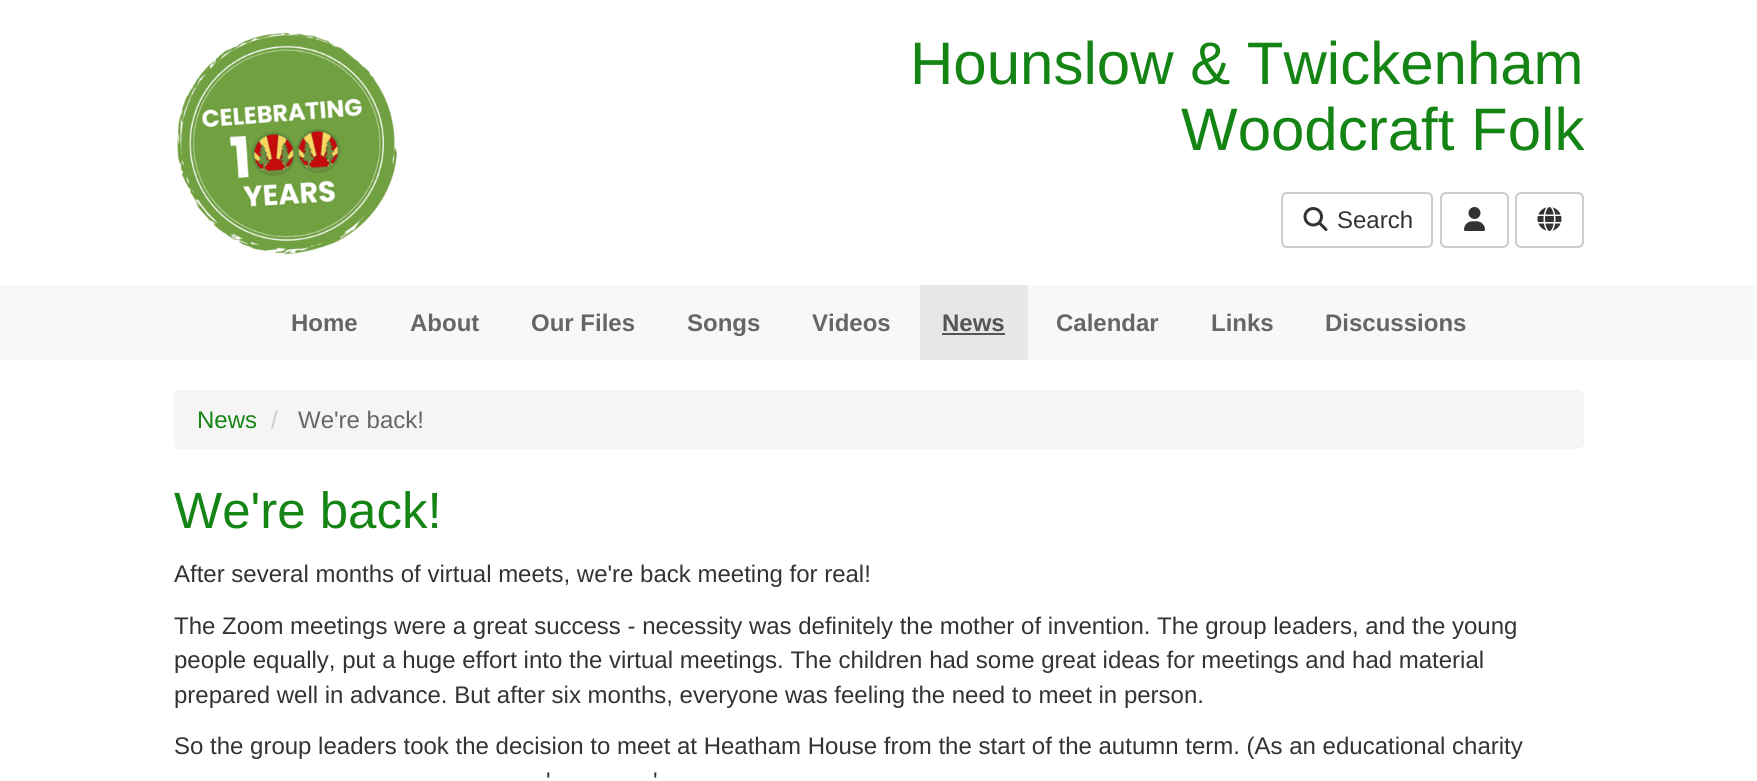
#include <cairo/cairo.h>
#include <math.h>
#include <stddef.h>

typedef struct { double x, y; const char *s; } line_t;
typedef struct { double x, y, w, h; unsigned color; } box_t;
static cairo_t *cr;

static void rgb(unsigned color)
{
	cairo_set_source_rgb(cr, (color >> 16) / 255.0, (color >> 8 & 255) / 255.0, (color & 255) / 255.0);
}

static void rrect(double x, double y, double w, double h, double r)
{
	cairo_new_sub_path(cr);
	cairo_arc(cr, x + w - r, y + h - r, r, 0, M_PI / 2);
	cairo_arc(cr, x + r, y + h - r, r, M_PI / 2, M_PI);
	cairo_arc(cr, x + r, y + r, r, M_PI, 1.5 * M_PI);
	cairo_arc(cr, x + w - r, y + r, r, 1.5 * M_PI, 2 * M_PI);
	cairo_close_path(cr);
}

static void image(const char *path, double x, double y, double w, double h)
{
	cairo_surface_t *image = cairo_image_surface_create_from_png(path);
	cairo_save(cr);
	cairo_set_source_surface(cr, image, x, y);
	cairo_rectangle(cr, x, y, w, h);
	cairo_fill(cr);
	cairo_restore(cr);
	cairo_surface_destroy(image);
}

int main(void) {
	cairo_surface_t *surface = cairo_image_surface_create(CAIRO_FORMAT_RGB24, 1757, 781);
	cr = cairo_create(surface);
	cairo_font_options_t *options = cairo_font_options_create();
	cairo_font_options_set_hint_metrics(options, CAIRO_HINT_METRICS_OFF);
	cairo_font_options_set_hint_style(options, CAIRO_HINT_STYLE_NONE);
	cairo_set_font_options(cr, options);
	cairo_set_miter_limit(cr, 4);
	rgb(0xffffff);
	cairo_paint(cr);
	image("img/1.png", 176, 32, 221, 223);
	rrect(1282, 193, 150, 54, 5);
	rgb(0xcccccc);
	cairo_stroke(cr);
	image("img/2.png", 1303, 207, 25, 24);
	rrect(1441, 193, 67, 54, 5);
	cairo_stroke(cr);
	image("img/3.png", 1464, 207, 21, 24);
	rrect(1516, 193, 67, 54, 5);
	cairo_stroke(cr);
	image("img/4.png", 1537, 207, 25, 24);
	{
		static const box_t items[] = {
			{0, 285, 1757, 75, 0xf8f8f8},
			{920, 285, 108, 75, 0xe7e7e7},
			{942, 333, 63, 2, 0x555555},
		};
		for (size_t i = 0; i < sizeof items / sizeof *items; i++) {
			rgb(items[i].color);
			cairo_rectangle(cr, items[i].x, items[i].y, items[i].w, items[i].h);
			cairo_fill(cr);
		}
	}
	rgb(0xf5f5f5);
	rrect(174, 390, 1410, 59, 6);
	cairo_fill(cr);
	cairo_select_font_face(cr, "Liberation Sans", CAIRO_FONT_SLANT_NORMAL, CAIRO_FONT_WEIGHT_NORMAL);
	cairo_set_font_size(cr, 60);
	rgb(0x148514);
	cairo_move_to(cr, 910, 84);
	cairo_show_text(cr, "Hounslow & Twickenham");
	cairo_move_to(cr, 1181, 150);
	cairo_show_text(cr, "Woodcraft Folk");
	cairo_set_font_size(cr, 24);
	rgb(0x333333);
	cairo_move_to(cr, 1337, 228);
	cairo_show_text(cr, "Search");
	cairo_select_font_face(cr, "Liberation Sans", CAIRO_FONT_SLANT_NORMAL, CAIRO_FONT_WEIGHT_BOLD);
	rgb(0x666666);
	{
		static const line_t items[] = {
			{291, 331, "Home"},
			{410, 331, "About"},
			{531, 331, "Our Files"},
			{687, 331, "Songs"},
			{812, 331, "Videos"},
		};
		for (size_t i = 0; i < sizeof items / sizeof *items; i++) {
			cairo_move_to(cr, items[i].x, items[i].y);
			cairo_show_text(cr, items[i].s);
		}
	}
	rgb(0x555555);
	cairo_move_to(cr, 942, 331);
	cairo_show_text(cr, "News");
	rgb(0x666666);
	{
		static const line_t items[] = {
			{1056, 331, "Calendar"},
			{1211, 331, "Links"},
			{1325, 331, "Discussions"},
		};
		for (size_t i = 0; i < sizeof items / sizeof *items; i++) {
			cairo_move_to(cr, items[i].x, items[i].y);
			cairo_show_text(cr, items[i].s);
		}
	}
	cairo_select_font_face(cr, "Liberation Sans", CAIRO_FONT_SLANT_NORMAL, CAIRO_FONT_WEIGHT_NORMAL);
	rgb(0x148514);
	cairo_move_to(cr, 197, 428);
	cairo_show_text(cr, "News");
	rgb(0xcccccc);
	cairo_move_to(cr, 271, 428);
	cairo_show_text(cr, "/");
	rgb(0x666666);
	cairo_move_to(cr, 298, 428);
	cairo_show_text(cr, "We're back!");
	cairo_set_font_size(cr, 51);
	rgb(0x148514);
	cairo_move_to(cr, 174, 528);
	cairo_show_text(cr, "We're back!");
	cairo_set_font_size(cr, 24);
	rgb(0x333333);
	{
		static const line_t items[] = {
			{174, 582, "After several months of virtual meets, we're back meeting for real!"},
			{174, 634, "The Zoom meetings were a great success - necessity was definitely the mother of invention. The group leaders, and the young"},
			{174, 668, "people equally, put a huge effort into the virtual meetings. The children had some great ideas for meetings and had material"},
			{174, 703, "prepared well in advance. But after six months, everyone was feeling the need to meet in person."},
			{174, 754, "So the group leaders took the decision to meet at Heatham House from the start of the autumn term. (As an educational charity"},
			{546, 789, "'"},
			{653, 789, "'"},
		};
		for (size_t i = 0; i < sizeof items / sizeof *items; i++) {
			cairo_move_to(cr, items[i].x, items[i].y);
			cairo_show_text(cr, items[i].s);
		}
	}
	cairo_surface_write_to_png(surface, "page.png");
	cairo_font_options_destroy(options);
	cairo_destroy(cr);
	cairo_surface_destroy(surface);
	return 0;
}
